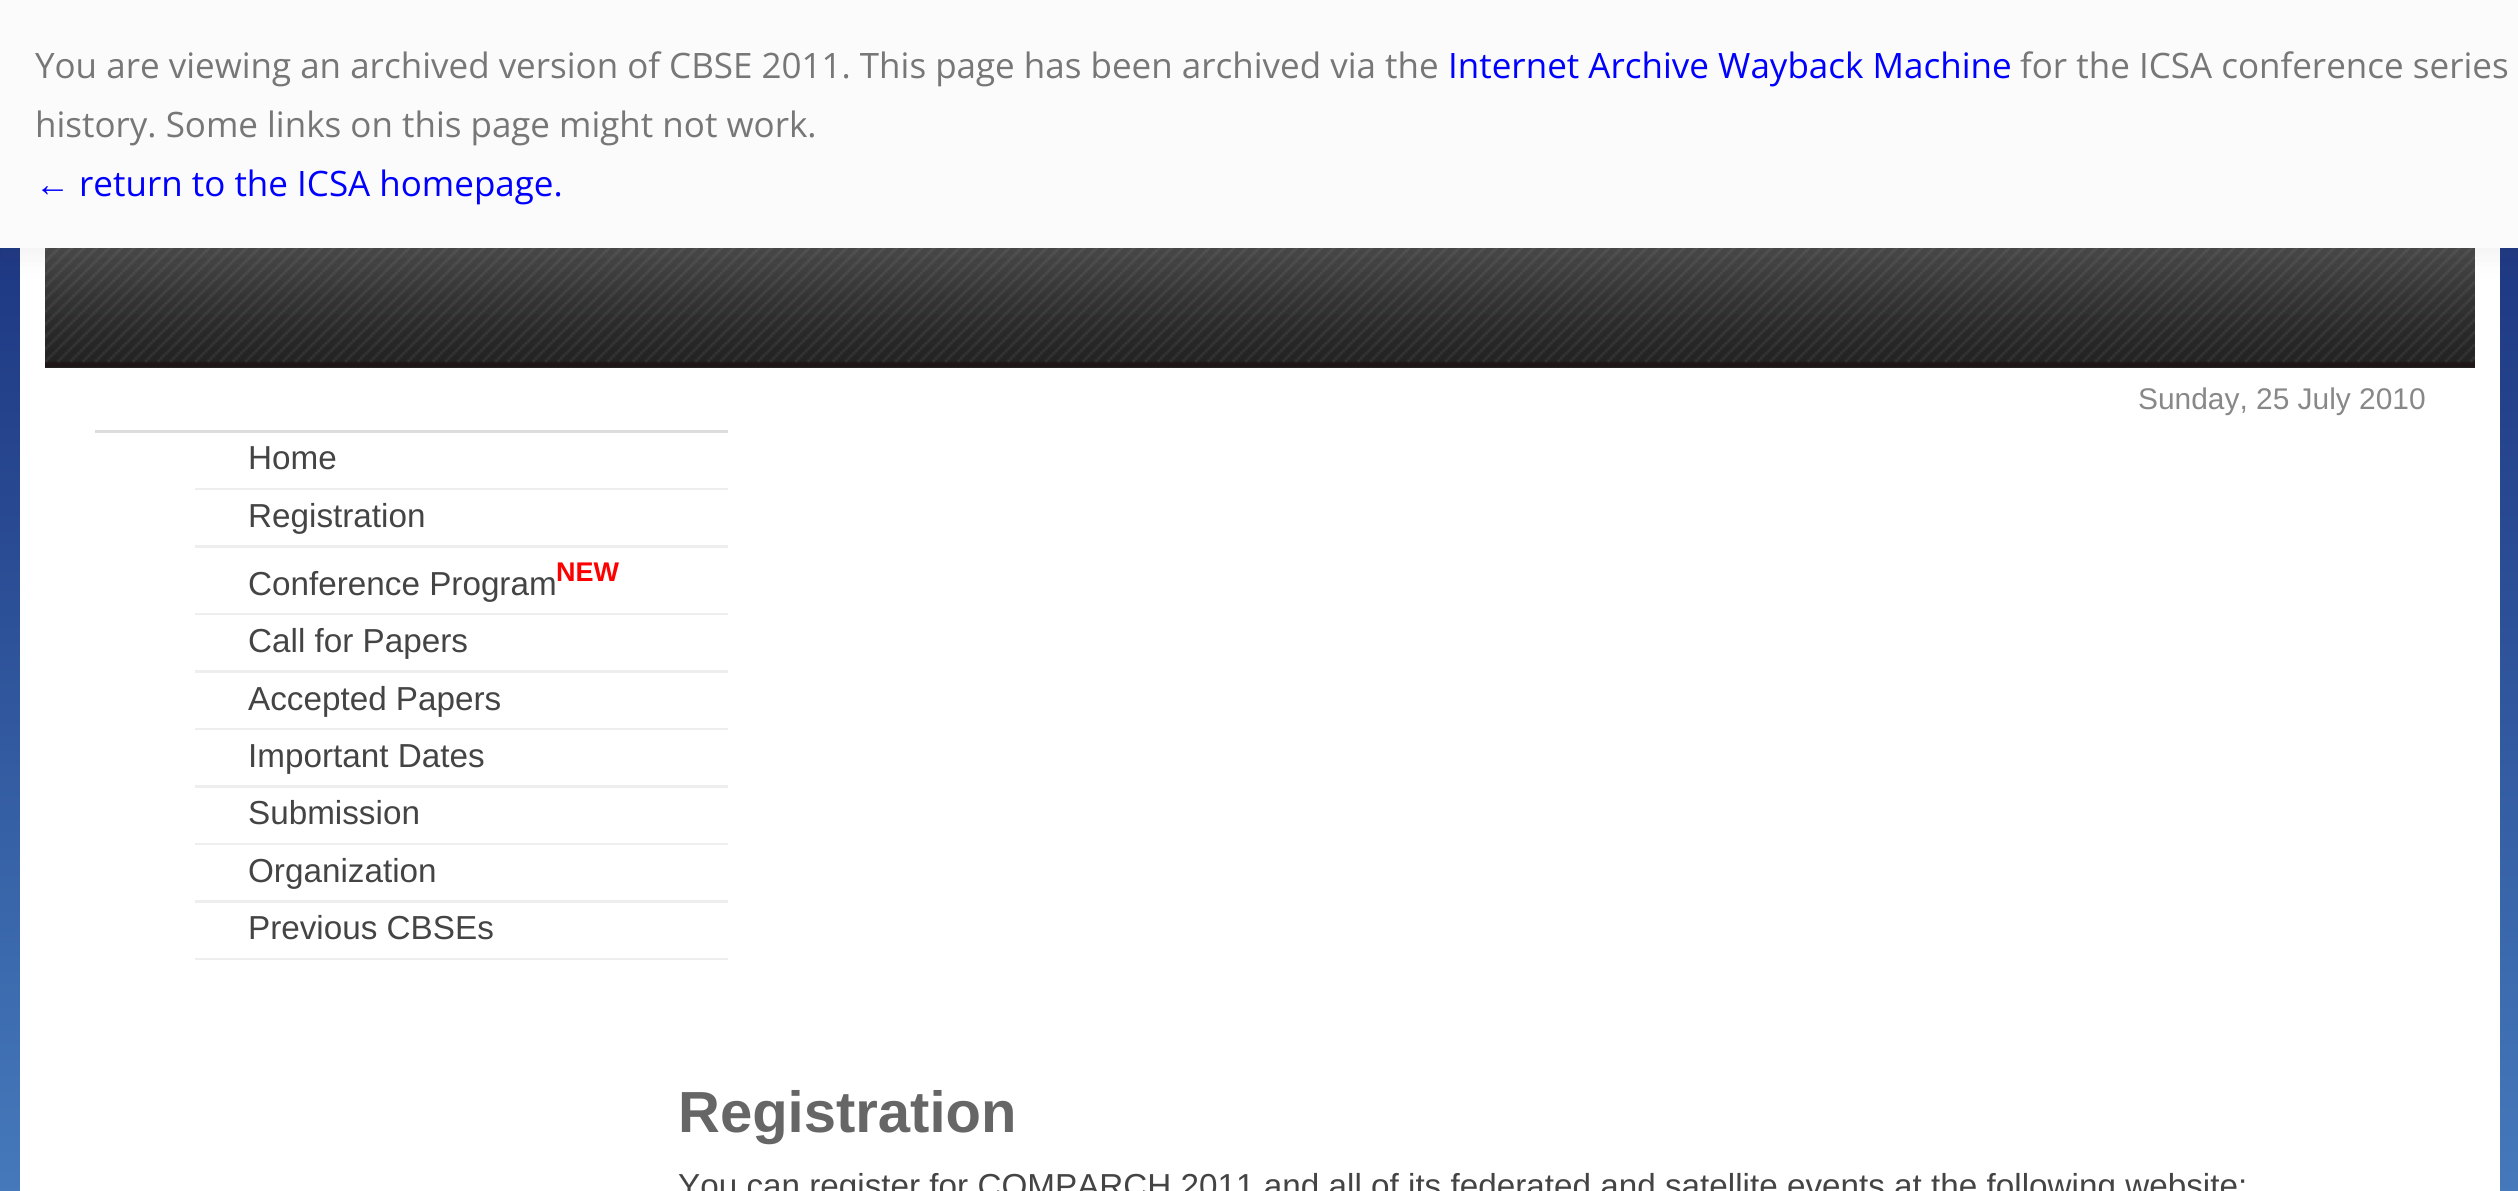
#include <cairo/cairo.h>
#include <math.h>
#include <stddef.h>

typedef struct { double x, y; const char *s; } line_t;
typedef struct { double x, y, w, h; unsigned color; } box_t;
static cairo_t *cr;

static void rgb(unsigned color)
{
	cairo_set_source_rgb(cr, (color >> 16) / 255.0, (color >> 8 & 255) / 255.0, (color & 255) / 255.0);
}

static void rrect(double x, double y, double w, double h, double r)
{
	cairo_new_sub_path(cr);
	cairo_arc(cr, x + w - r, y + h - r, r, 0, M_PI / 2);
	cairo_arc(cr, x + r, y + h - r, r, M_PI / 2, M_PI);
	cairo_arc(cr, x + r, y + r, r, M_PI, 1.5 * M_PI);
	cairo_arc(cr, x + w - r, y + r, r, 1.5 * M_PI, 2 * M_PI);
	cairo_close_path(cr);
}

static void soft_shadow(double x, double y, double w, double h, double r, double blur, double alpha)
{
	cairo_push_group_with_content(cr, CAIRO_CONTENT_ALPHA);
	cairo_set_operator(cr, CAIRO_OPERATOR_SOURCE);
	for (int i = 15; i >= -15 && fmin(w, h) + blur * i / 3 > 0; i -= 2) {
		double e = blur * i / 6;
		cairo_set_source_rgba(cr, 0, 0, 0, alpha * erfc((i - 1) / 8.5) / 2);
		rrect(x - e, y - e, w + 2 * e, h + 2 * e, fmax(0, fmin(r + e + blur * .6, fmin(w, h) / 2 + e)));
		cairo_fill(cr);
	}
	cairo_pattern_t *soft = cairo_pop_group(cr);
	cairo_mask(cr, soft);
	cairo_pattern_destroy(soft);
}

static void image(const char *path, double x, double y, double w, double h)
{
	cairo_surface_t *image = cairo_image_surface_create_from_png(path);
	cairo_save(cr);
	cairo_set_source_surface(cr, image, x, y);
	cairo_rectangle(cr, x, y, w, h);
	cairo_fill(cr);
	cairo_restore(cr);
	cairo_surface_destroy(image);
}

int main(void) {
	cairo_surface_t *surface = cairo_image_surface_create(CAIRO_FORMAT_RGB24, 2518, 1191);
	cr = cairo_create(surface);
	cairo_font_options_t *options = cairo_font_options_create();
	cairo_font_options_set_hint_metrics(options, CAIRO_HINT_METRICS_OFF);
	cairo_font_options_set_hint_style(options, CAIRO_HINT_STYLE_NONE);
	cairo_set_font_options(cr, options);
	cairo_set_miter_limit(cr, 4);
	rgb(0xffffff);
	cairo_paint(cr);
	image("img/1.png", 0, 248, 2518, 943);
	rgb(0xffffff);
	cairo_rectangle(cr, 20, 248, 2480, 943);
	cairo_fill(cr);
	image("img/2.png", 45, 248, 2430, 119);
	rgb(0x323232);
	soft_shadow(0, 13, 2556, 247, 0, 12.5, 0.06);
	{
		static const box_t items[] = {
			{0, 0, 2518, 248, 0xfbfbfb},
			{45, 367, 2430, 1, 0x232324},
			{95, 430, 633, 3, 0xdddddd},
			{195, 488, 533, 2, 0xeeeeee},
			{195, 545, 533, 3, 0xeeeeee},
			{195, 613, 533, 2, 0xeeeeee},
			{195, 670, 533, 3, 0xeeeeee},
			{195, 728, 533, 2, 0xeeeeee},
			{195, 785, 533, 3, 0xeeeeee},
			{195, 843, 533, 2, 0xeeeeee},
			{195, 900, 533, 3, 0xeeeeee},
			{195, 958, 533, 2, 0xeeeeee},
		};
		for (size_t i = 0; i < sizeof items / sizeof *items; i++) {
			rgb(items[i].color);
			cairo_rectangle(cr, items[i].x, items[i].y, items[i].w, items[i].h);
			cairo_fill(cr);
		}
	}
	cairo_select_font_face(cr, "Open Sans", CAIRO_FONT_SLANT_NORMAL, CAIRO_FONT_WEIGHT_NORMAL);
	cairo_set_font_size(cr, 35);
	rgb(0x777777);
	cairo_move_to(cr, 35, 78);
	cairo_show_text(cr, "You are viewing an archived version of CBSE 2011. This page has been archived via the");
	rgb(0x0000ff);
	cairo_move_to(cr, 1448, 78);
	cairo_show_text(cr, "Internet Archive Wayback Machine");
	rgb(0x777777);
	cairo_move_to(cr, 2020, 78);
	cairo_show_text(cr, "for the ICSA conference series");
	cairo_move_to(cr, 35, 137);
	cairo_show_text(cr, "history. Some links on this page might not work.");
	cairo_select_font_face(cr, "Liberation Sans", CAIRO_FONT_SLANT_NORMAL, CAIRO_FONT_WEIGHT_NORMAL);
	rgb(0x0000ff);
	cairo_move_to(cr, 35, 196);
	cairo_show_text(cr, "←");
	cairo_select_font_face(cr, "Open Sans", CAIRO_FONT_SLANT_NORMAL, CAIRO_FONT_WEIGHT_NORMAL);
	cairo_move_to(cr, 79, 196);
	cairo_show_text(cr, "return to the ICSA homepage.");
	cairo_select_font_face(cr, "Liberation Sans", CAIRO_FONT_SLANT_NORMAL, CAIRO_FONT_WEIGHT_NORMAL);
	cairo_set_font_size(cr, 29.9);
	rgb(0x888888);
	cairo_move_to(cr, 2138, 409);
	cairo_show_text(cr, "Sunday, 25 July 2010");
	cairo_set_font_size(cr, 33.25);
	rgb(0x444444);
	{
		static const line_t items[] = {
			{248, 469, "Home"},
			{248, 527, "Registration"},
			{248, 595, "Conference Program"},
		};
		for (size_t i = 0; i < sizeof items / sizeof *items; i++) {
			cairo_move_to(cr, items[i].x, items[i].y);
			cairo_show_text(cr, items[i].s);
		}
	}
	cairo_select_font_face(cr, "Liberation Sans", CAIRO_FONT_SLANT_NORMAL, CAIRO_FONT_WEIGHT_BOLD);
	cairo_set_font_size(cr, 27);
	rgb(0xff0000);
	cairo_move_to(cr, 556, 581);
	cairo_show_text(cr, "NEW");
	cairo_select_font_face(cr, "Liberation Sans", CAIRO_FONT_SLANT_NORMAL, CAIRO_FONT_WEIGHT_NORMAL);
	cairo_set_font_size(cr, 33.25);
	rgb(0x444444);
	{
		static const line_t items[] = {
			{248, 652, "Call for Papers"},
			{248, 710, "Accepted Papers"},
			{248, 767, "Important Dates"},
			{248, 824, "Submission"},
			{248, 882, "Organization"},
			{248, 939, "Previous CBSEs"},
		};
		for (size_t i = 0; i < sizeof items / sizeof *items; i++) {
			cairo_move_to(cr, items[i].x, items[i].y);
			cairo_show_text(cr, items[i].s);
		}
	}
	cairo_select_font_face(cr, "Liberation Sans", CAIRO_FONT_SLANT_NORMAL, CAIRO_FONT_WEIGHT_BOLD);
	cairo_set_font_size(cr, 58);
	rgb(0x666666);
	cairo_move_to(cr, 678, 1132);
	cairo_show_text(cr, "Registration");
	cairo_select_font_face(cr, "Liberation Sans", CAIRO_FONT_SLANT_NORMAL, CAIRO_FONT_WEIGHT_NORMAL);
	cairo_set_font_size(cr, 33.25);
	rgb(0x444444);
	cairo_move_to(cr, 678, 1197);
	cairo_show_text(cr, "You can register for COMPARCH 2011 and all of its federated and satellite events at the following website:");
	cairo_surface_write_to_png(surface, "page.png");
	cairo_font_options_destroy(options);
	cairo_destroy(cr);
	cairo_surface_destroy(surface);
	return 0;
}
